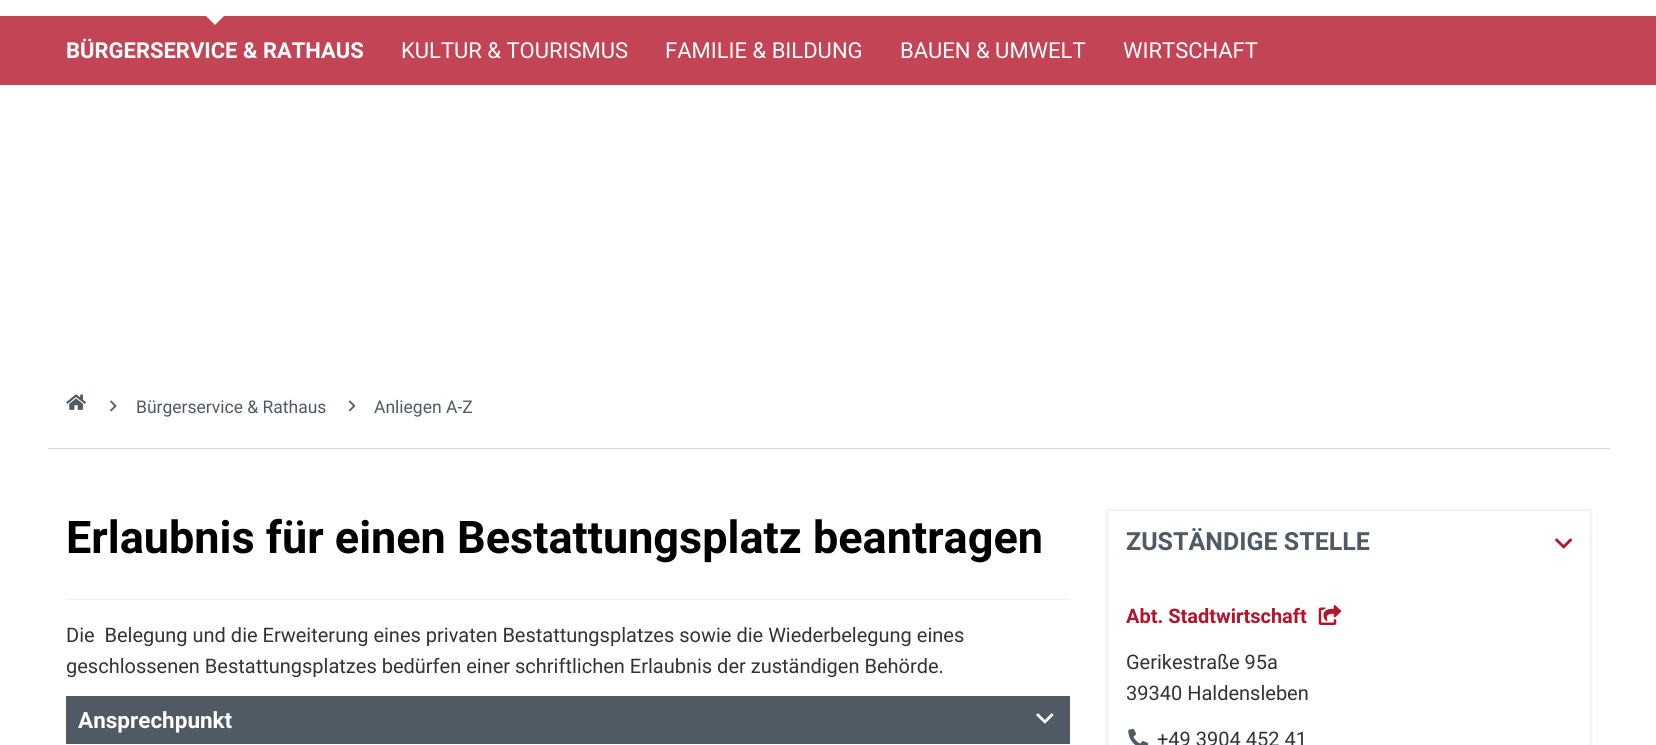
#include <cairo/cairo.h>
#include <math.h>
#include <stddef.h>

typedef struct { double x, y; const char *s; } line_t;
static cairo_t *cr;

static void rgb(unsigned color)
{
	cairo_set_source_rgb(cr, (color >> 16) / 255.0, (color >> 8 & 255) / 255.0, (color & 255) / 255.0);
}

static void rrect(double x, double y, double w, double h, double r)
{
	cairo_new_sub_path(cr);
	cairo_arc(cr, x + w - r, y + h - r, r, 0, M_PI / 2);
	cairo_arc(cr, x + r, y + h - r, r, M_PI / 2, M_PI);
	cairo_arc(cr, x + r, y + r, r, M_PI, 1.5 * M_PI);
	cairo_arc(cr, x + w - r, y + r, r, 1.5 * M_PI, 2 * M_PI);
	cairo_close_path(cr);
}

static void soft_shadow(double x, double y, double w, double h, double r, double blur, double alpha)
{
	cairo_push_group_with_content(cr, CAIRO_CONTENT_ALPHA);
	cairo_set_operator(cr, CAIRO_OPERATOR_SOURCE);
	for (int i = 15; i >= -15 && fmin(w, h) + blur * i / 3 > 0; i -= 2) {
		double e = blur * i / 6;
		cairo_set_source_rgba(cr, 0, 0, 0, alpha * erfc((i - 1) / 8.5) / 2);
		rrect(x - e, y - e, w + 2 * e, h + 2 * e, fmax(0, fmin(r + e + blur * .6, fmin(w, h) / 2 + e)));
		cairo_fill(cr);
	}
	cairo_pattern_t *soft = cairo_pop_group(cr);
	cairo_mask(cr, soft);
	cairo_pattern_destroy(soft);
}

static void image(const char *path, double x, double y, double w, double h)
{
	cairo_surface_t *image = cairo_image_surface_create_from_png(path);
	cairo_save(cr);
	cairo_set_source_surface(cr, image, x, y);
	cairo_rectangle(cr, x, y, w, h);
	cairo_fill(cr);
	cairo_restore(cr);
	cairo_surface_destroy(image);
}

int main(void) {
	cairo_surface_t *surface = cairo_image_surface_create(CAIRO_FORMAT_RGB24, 1656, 745);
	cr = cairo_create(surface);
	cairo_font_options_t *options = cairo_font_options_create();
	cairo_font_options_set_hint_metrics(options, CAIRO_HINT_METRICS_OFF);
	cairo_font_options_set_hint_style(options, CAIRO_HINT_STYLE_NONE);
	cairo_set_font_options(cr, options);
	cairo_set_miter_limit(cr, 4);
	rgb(0xffffff);
	cairo_paint(cr);
	rgb(0xc34455);
	cairo_rectangle(cr, 0, 16, 1656, 69);
	cairo_fill(cr);
	rgb(0xffffff);
	cairo_new_path(cr);
	cairo_move_to(cr, 206, 16);
	cairo_line_to(cr, 224, 16);
	cairo_line_to(cr, 215, 25);
	cairo_close_path(cr);
	cairo_fill(cr);
	rgb(0xd6d6d6);
	cairo_rectangle(cr, 48, 448, 1562, 1);
	cairo_fill(cr);
	image("img/1.png", 66, 394, 20, 16);
	image("img/2.png", 110, 400, 7, 12);
	image("img/3.png", 348, 400, 8, 12);
	rgb(0xeeeeee);
	cairo_rectangle(cr, 66, 599, 1004, 1);
	cairo_fill(cr);
	rgb(0x505a64);
	cairo_rectangle(cr, 66, 696, 1004, 48);
	cairo_fill(cr);
	image("img/4.png", 1036, 713, 18, 11);
	rgb(0x505a64);
	soft_shadow(1108, 511, 482, 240, 0, 2, 0.25);
	rgb(0xffffff);
	cairo_rectangle(cr, 1108, 511, 482, 234);
	cairo_fill(cr);
	image("img/5.png", 1555, 538, 18, 11);
	image("img/6.png", 1318, 605, 24, 20);
	image("img/7.png", 1128, 728, 21, 17);
	cairo_select_font_face(cr, "Roboto", CAIRO_FONT_SLANT_NORMAL, CAIRO_FONT_WEIGHT_BOLD);
	cairo_set_font_size(cr, 22);
	cairo_move_to(cr, 66, 58);
	cairo_show_text(cr, "BÜRGERSERVICE & RATHAUS");
	cairo_select_font_face(cr, "Roboto", CAIRO_FONT_SLANT_NORMAL, CAIRO_FONT_WEIGHT_NORMAL);
	{
		static const line_t items[] = {
			{401, 58, "KULTUR & TOURISMUS"},
			{665, 58, "FAMILIE & BILDUNG"},
			{900, 58, "BAUEN & UMWELT"},
			{1123, 58, "WIRTSCHAFT"},
		};
		for (size_t i = 0; i < sizeof items / sizeof *items; i++) {
			cairo_move_to(cr, items[i].x, items[i].y);
			cairo_show_text(cr, items[i].s);
		}
	}
	cairo_set_font_size(cr, 17.5);
	rgb(0x505a64);
	cairo_move_to(cr, 136, 413);
	cairo_show_text(cr, "Bürgerservice & Rathaus");
	cairo_move_to(cr, 374, 413);
	cairo_show_text(cr, "Anliegen A-Z");
	cairo_select_font_face(cr, "Roboto", CAIRO_FONT_SLANT_NORMAL, CAIRO_FONT_WEIGHT_BOLD);
	cairo_set_font_size(cr, 45);
	rgb(0x000000);
	cairo_move_to(cr, 66, 553);
	cairo_show_text(cr, "Erlaubnis für einen Bestattungsplatz beantragen");
	cairo_select_font_face(cr, "Roboto", CAIRO_FONT_SLANT_NORMAL, CAIRO_FONT_WEIGHT_NORMAL);
	cairo_set_font_size(cr, 20);
	rgb(0x333333);
	cairo_move_to(cr, 66, 642);
	cairo_show_text(cr, "Die  Belegung und die Erweiterung eines privaten Bestattungsplatzes sowie die Wiederbelegung eines");
	cairo_move_to(cr, 66, 673);
	cairo_show_text(cr, "geschlossenen Bestattungsplatzes bedürfen einer schriftlichen Erlaubnis der zuständigen Behörde.");
	cairo_select_font_face(cr, "Roboto", CAIRO_FONT_SLANT_NORMAL, CAIRO_FONT_WEIGHT_BOLD);
	cairo_set_font_size(cr, 22.5);
	rgb(0xffffff);
	cairo_move_to(cr, 78, 728);
	cairo_show_text(cr, "Ansprechpunkt");
	cairo_set_font_size(cr, 25);
	rgb(0x505a64);
	cairo_move_to(cr, 1126, 550);
	cairo_show_text(cr, "ZUSTÄNDIGE STELLE");
	cairo_set_font_size(cr, 20);
	rgb(0xb4152b);
	cairo_move_to(cr, 1126, 623);
	cairo_show_text(cr, "Abt. Stadtwirtschaft");
	cairo_select_font_face(cr, "Roboto", CAIRO_FONT_SLANT_NORMAL, CAIRO_FONT_WEIGHT_NORMAL);
	rgb(0x333333);
	{
		static const line_t items[] = {
			{1126, 669, "Gerikestraße 95a"},
			{1126, 700, "39340 Haldensleben"},
			{1157, 746, "+49 3904 452 41"},
		};
		for (size_t i = 0; i < sizeof items / sizeof *items; i++) {
			cairo_move_to(cr, items[i].x, items[i].y);
			cairo_show_text(cr, items[i].s);
		}
	}
	cairo_surface_write_to_png(surface, "page.png");
	cairo_font_options_destroy(options);
	cairo_destroy(cr);
	cairo_surface_destroy(surface);
	return 0;
}
